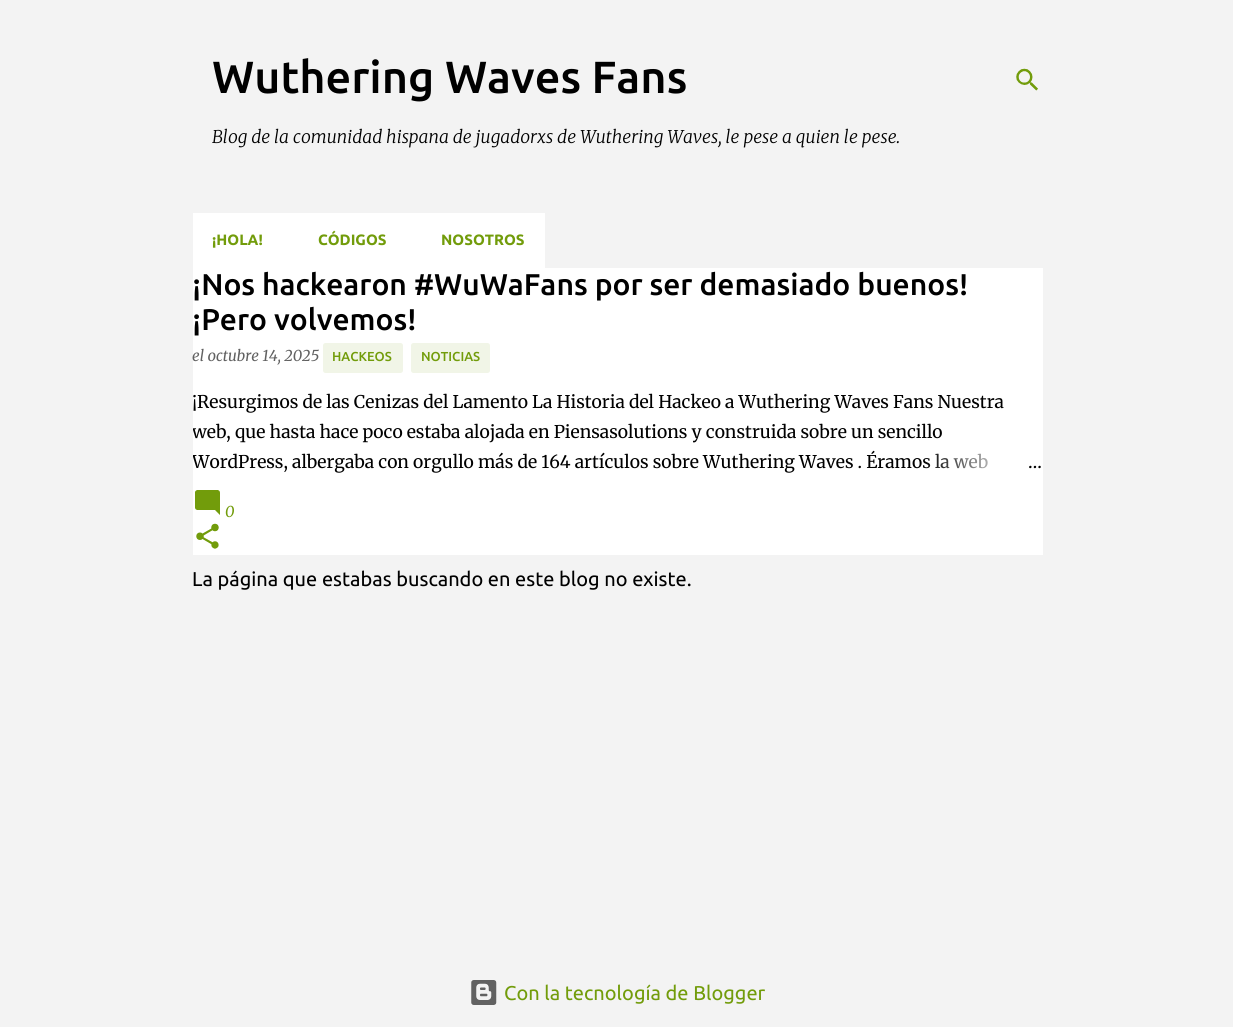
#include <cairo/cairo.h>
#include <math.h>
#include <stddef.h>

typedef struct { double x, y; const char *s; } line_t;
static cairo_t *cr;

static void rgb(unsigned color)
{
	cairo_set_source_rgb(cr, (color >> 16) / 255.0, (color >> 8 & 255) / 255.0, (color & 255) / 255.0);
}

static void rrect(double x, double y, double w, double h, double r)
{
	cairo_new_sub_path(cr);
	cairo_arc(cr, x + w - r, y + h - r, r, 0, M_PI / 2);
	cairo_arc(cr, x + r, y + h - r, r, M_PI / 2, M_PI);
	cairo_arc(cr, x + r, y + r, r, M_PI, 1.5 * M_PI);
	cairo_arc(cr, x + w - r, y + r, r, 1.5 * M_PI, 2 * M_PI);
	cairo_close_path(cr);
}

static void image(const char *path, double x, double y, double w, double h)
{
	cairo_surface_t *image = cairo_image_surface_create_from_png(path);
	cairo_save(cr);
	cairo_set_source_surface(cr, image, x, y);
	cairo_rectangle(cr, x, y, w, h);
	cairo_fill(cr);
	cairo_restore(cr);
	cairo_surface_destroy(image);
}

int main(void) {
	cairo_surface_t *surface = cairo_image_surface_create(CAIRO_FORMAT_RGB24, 1233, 1027);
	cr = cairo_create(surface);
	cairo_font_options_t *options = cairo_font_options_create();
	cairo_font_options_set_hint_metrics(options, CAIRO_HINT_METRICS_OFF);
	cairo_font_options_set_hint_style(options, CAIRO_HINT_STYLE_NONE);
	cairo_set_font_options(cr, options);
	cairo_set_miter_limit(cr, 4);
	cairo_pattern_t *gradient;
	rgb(0xf3f3f3);
	cairo_paint(cr);
	image("img/1.png", 1016, 68, 22, 23);
	rgb(0xffffff);
	cairo_rectangle(cr, 193, 213, 352, 55);
	cairo_fill(cr);
	cairo_rectangle(cr, 193, 268, 850, 287);
	cairo_fill(cr);
	rgb(0xf1f5e7);
	rrect(323, 343, 80, 30, 2.5);
	cairo_fill(cr);
	rrect(411, 343, 79, 30, 2.5);
	cairo_fill(cr);
	image("img/2.png", 195, 490, 25, 25);
	image("img/3.png", 196, 523, 23, 26);
	image("img/4.png", 471, 980, 26, 25);
	cairo_select_font_face(cr, "Ubuntu Medium", CAIRO_FONT_SLANT_NORMAL, CAIRO_FONT_WEIGHT_NORMAL);
	cairo_set_font_size(cr, 45);
	rgb(0x000000);
	cairo_move_to(cr, 212, 93);
	cairo_show_text(cr, "Wuthering Waves Fans");
	cairo_select_font_face(cr, "Merriweather Light", CAIRO_FONT_SLANT_ITALIC, CAIRO_FONT_WEIGHT_NORMAL);
	cairo_set_font_size(cr, 17.5);
	cairo_move_to(cr, 212, 143);
	cairo_show_text(cr, "Blog de la comunidad hispana de jugadorxs de Wuthering Waves, le pese a quien le pese.");
	cairo_select_font_face(cr, "Ubuntu", CAIRO_FONT_SLANT_NORMAL, CAIRO_FONT_WEIGHT_BOLD);
	cairo_set_font_size(cr, 15);
	rgb(0x729c0b);
	{
		static const line_t items[] = {
			{212, 245, "¡HOLA!"},
			{318, 245, "CÓDIGOS"},
			{441, 245, "NOSOTROS"},
		};
		for (size_t i = 0; i < sizeof items / sizeof *items; i++) {
			cairo_move_to(cr, items[i].x, items[i].y);
			cairo_show_text(cr, items[i].s);
		}
	}
	cairo_select_font_face(cr, "Ubuntu Medium", CAIRO_FONT_SLANT_NORMAL, CAIRO_FONT_WEIGHT_NORMAL);
	cairo_set_font_size(cr, 30);
	rgb(0x000000);
	cairo_move_to(cr, 192, 295);
	cairo_show_text(cr, "¡Nos hackearon #WuWaFans por ser demasiado buenos!");
	cairo_move_to(cr, 192, 330);
	cairo_show_text(cr, "¡Pero volvemos!");
	cairo_select_font_face(cr, "Merriweather", CAIRO_FONT_SLANT_ITALIC, CAIRO_FONT_WEIGHT_NORMAL);
	cairo_set_font_size(cr, 15);
	rgb(0x616161);
	cairo_move_to(cr, 192, 361);
	cairo_show_text(cr, "el octubre 14, 2025");
	cairo_select_font_face(cr, "Ubuntu Medium", CAIRO_FONT_SLANT_NORMAL, CAIRO_FONT_WEIGHT_NORMAL);
	cairo_set_font_size(cr, 13);
	rgb(0x729c0b);
	cairo_move_to(cr, 332, 361);
	cairo_show_text(cr, "HACKEOS");
	cairo_move_to(cr, 421, 361);
	cairo_show_text(cr, "NOTICIAS");
	cairo_select_font_face(cr, "Merriweather", CAIRO_FONT_SLANT_NORMAL, CAIRO_FONT_WEIGHT_NORMAL);
	cairo_set_font_size(cr, 17.5);
	rgb(0x000000);
	cairo_move_to(cr, 192, 408);
	cairo_show_text(cr, "¡Resurgimos de las Cenizas del Lamento La Historia del Hackeo a Wuthering Waves Fans Nuestra");
	cairo_save(cr);
	cairo_rectangle(cr, 193, 388, 850, 90);
	cairo_clip(cr);
	cairo_move_to(cr, 192, 438);
	cairo_show_text(cr, "web, que hasta hace poco estaba alojada en Piensasolutions y construida sobre un sencillo");
	cairo_move_to(cr, 192, 468);
	cairo_show_text(cr, "WordPress, albergaba con orgullo más de 164 artículos sobre Wuthering Waves . Éramos la web");
	cairo_restore(cr);
	gradient = cairo_pattern_create_linear(1043, 463, 923, 463);
	cairo_pattern_add_color_stop_rgba(gradient, 0, 1, 1, 1, 1);
	cairo_pattern_add_color_stop_rgba(gradient, 0.2, 1, 1, 1, 1);
	cairo_pattern_add_color_stop_rgba(gradient, 1, 1, 1, 1, 0);
	cairo_set_source(cr, gradient);
	cairo_pattern_destroy(gradient);
	cairo_rectangle(cr, 925, 453, 63, 16);
	cairo_fill(cr);
	rgb(0x000000);
	cairo_move_to(cr, 1028, 468);
	cairo_show_text(cr, "…");
	cairo_select_font_face(cr, "Merriweather", CAIRO_FONT_SLANT_ITALIC, CAIRO_FONT_WEIGHT_NORMAL);
	cairo_set_font_size(cr, 15);
	rgb(0x729c0b);
	cairo_move_to(cr, 225, 517);
	cairo_show_text(cr, "0");
	cairo_select_font_face(cr, "Ubuntu", CAIRO_FONT_SLANT_NORMAL, CAIRO_FONT_WEIGHT_NORMAL);
	cairo_set_font_size(cr, 20);
	rgb(0x000000);
	cairo_move_to(cr, 192, 586);
	cairo_show_text(cr, "La página que estabas buscando en este blog no existe.");
	rgb(0x729c0b);
	cairo_move_to(cr, 504, 1000);
	cairo_show_text(cr, "Con la tecnología de Blogger");
	cairo_surface_write_to_png(surface, "page.png");
	cairo_font_options_destroy(options);
	cairo_destroy(cr);
	cairo_surface_destroy(surface);
	return 0;
}
